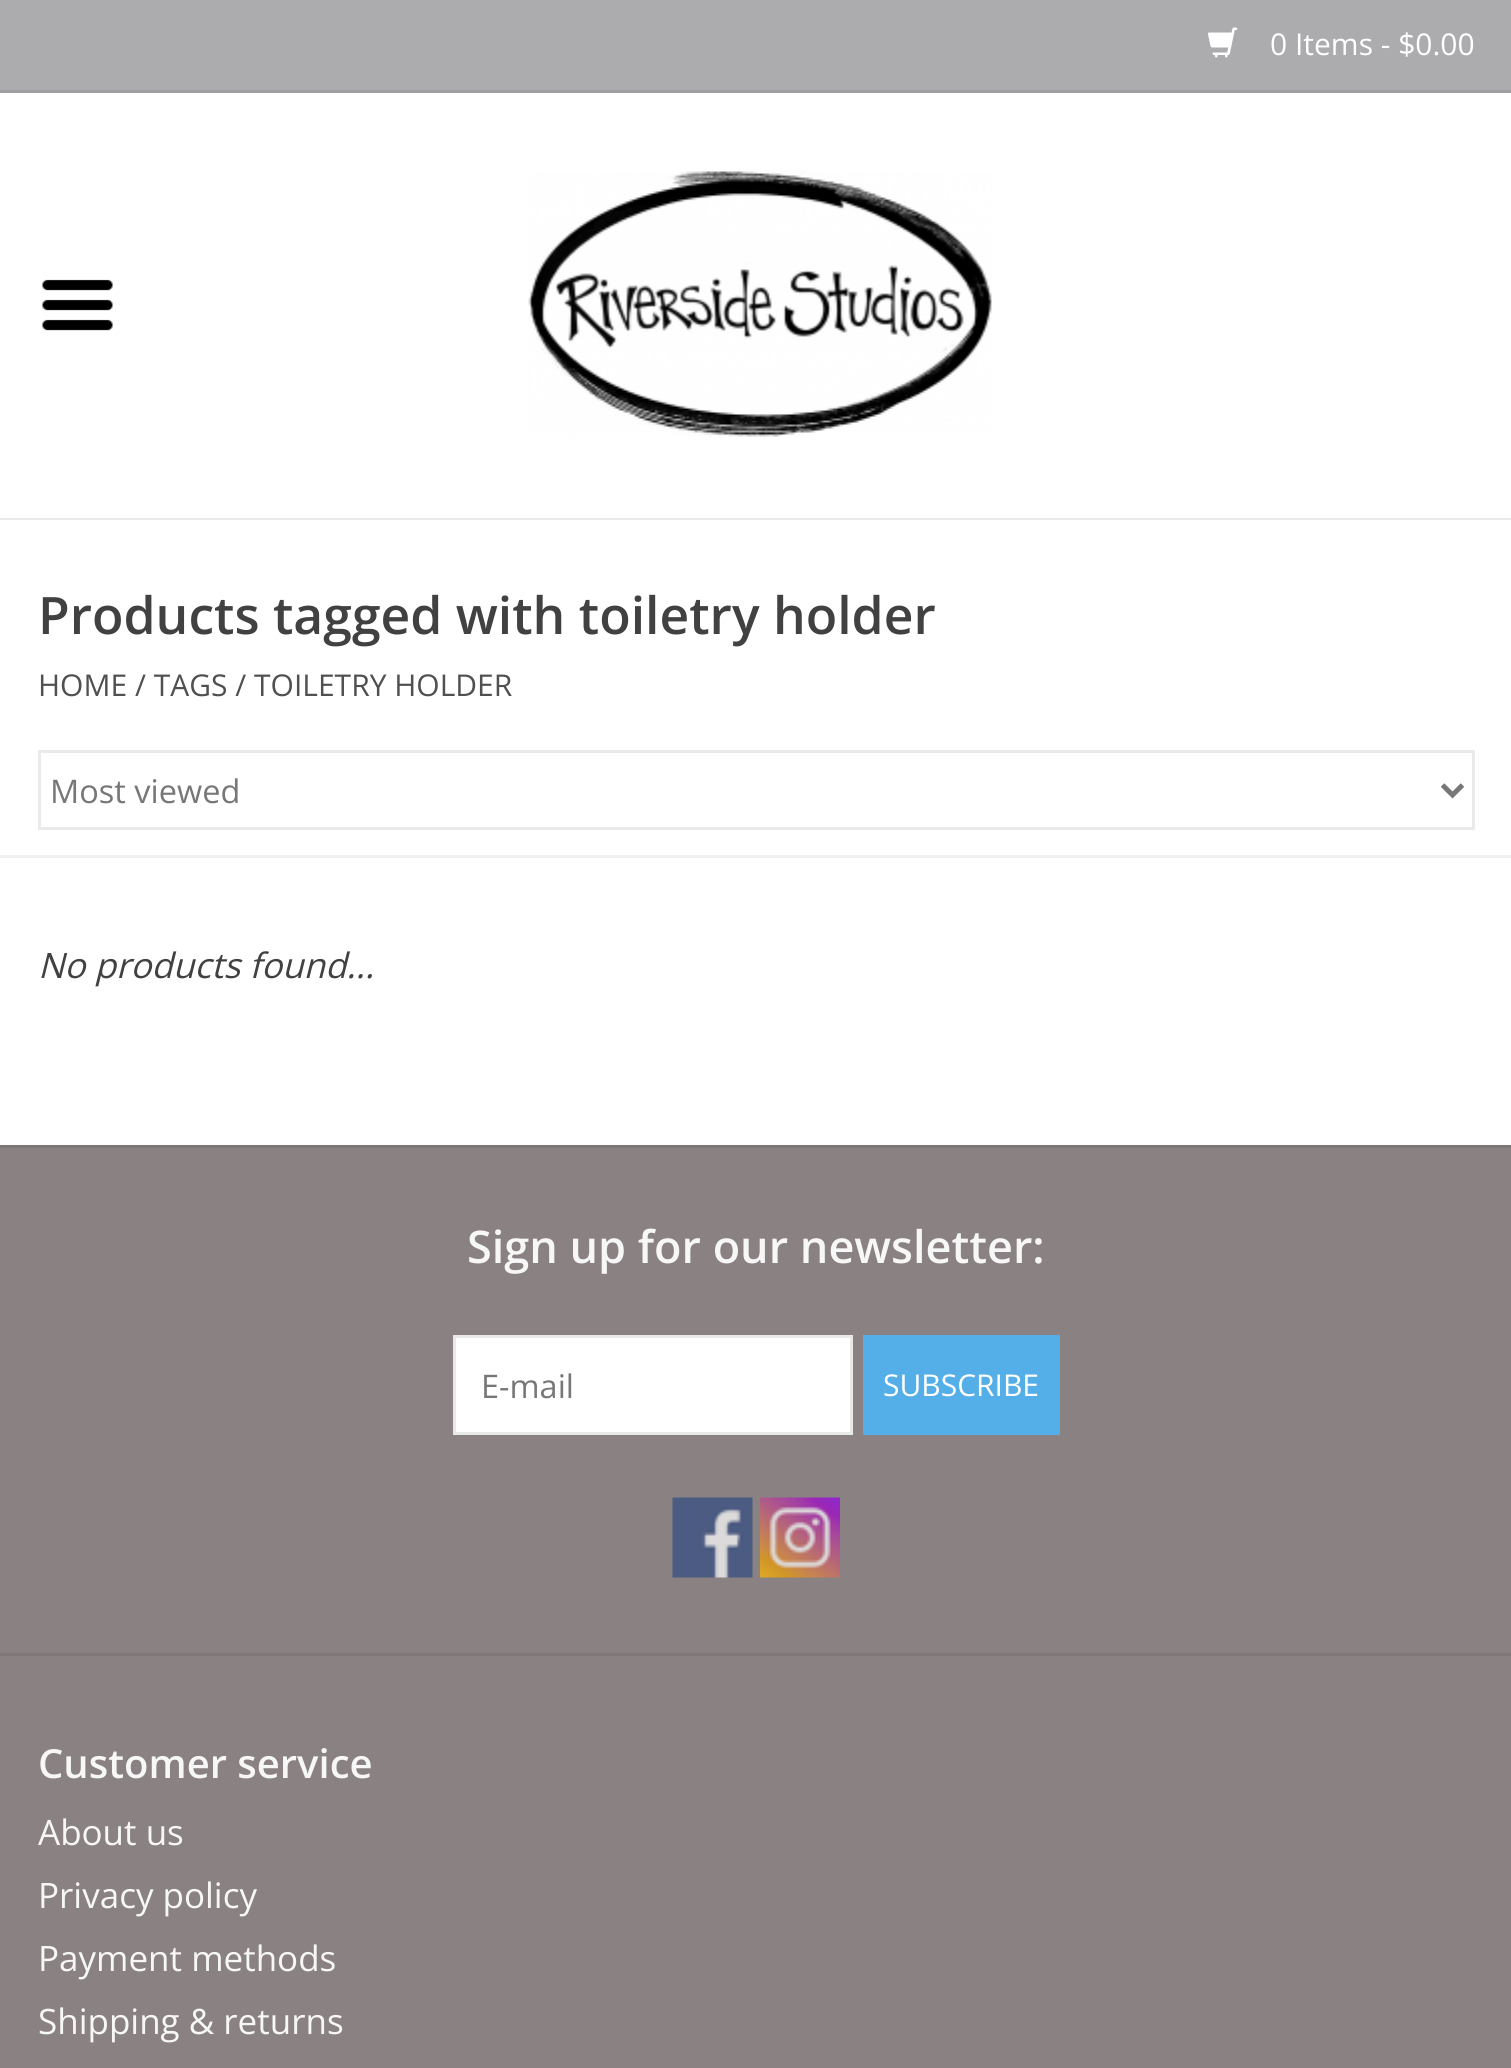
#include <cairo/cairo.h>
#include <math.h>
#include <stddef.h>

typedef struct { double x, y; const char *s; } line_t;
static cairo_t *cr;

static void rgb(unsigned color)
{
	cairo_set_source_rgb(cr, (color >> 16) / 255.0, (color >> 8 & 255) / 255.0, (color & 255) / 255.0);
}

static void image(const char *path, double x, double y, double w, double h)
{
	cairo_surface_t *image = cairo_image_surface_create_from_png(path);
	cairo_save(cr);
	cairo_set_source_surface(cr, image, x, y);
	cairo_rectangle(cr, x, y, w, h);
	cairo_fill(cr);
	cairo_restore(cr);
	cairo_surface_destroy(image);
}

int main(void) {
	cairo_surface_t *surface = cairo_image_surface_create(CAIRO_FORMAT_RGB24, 1511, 2068);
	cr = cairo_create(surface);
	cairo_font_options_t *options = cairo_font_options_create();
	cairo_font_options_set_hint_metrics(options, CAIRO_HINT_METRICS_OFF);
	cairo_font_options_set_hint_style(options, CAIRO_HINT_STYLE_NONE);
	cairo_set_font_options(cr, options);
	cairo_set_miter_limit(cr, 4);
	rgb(0xffffff);
	cairo_paint(cr);
	rgb(0xacacaf);
	cairo_rectangle(cr, 0, 0, 1511, 90);
	cairo_fill(cr);
	rgb(0x9f9fa2);
	cairo_rectangle(cr, 0, 90, 1511, 3);
	cairo_fill(cr);
	image("img/1.png", 1208, 27, 30, 31);
	rgb(0xeaeaea);
	cairo_rectangle(cr, 0, 518, 1511, 2);
	cairo_fill(cr);
	image("img/2.png", 528, 171, 464, 266);
	image("img/3.png", 42, 279, 71, 52);
	rgb(0xf0f0f0);
	cairo_rectangle(cr, 0, 855, 1511, 3);
	cairo_fill(cr);
	cairo_rectangle(cr, 39.5, 751.5, 1434, 77);
	rgb(0xeaeaea);
	cairo_set_line_width(cr, 3);
	cairo_stroke(cr);
	cairo_new_path(cr);
	cairo_move_to(cr, 1442.5, 785);
	cairo_line_to(cr, 1452.5, 795);
	cairo_line_to(cr, 1462.5, 785);
	rgb(0x777777);
	cairo_set_line_width(cr, 5);
	cairo_stroke(cr);
	rgb(0x8a8282);
	cairo_rectangle(cr, 0, 1148, 1511, 920);
	cairo_fill(cr);
	rgb(0x7e7777);
	cairo_rectangle(cr, 0, 1145, 1511, 3);
	cairo_fill(cr);
	rgb(0xffffff);
	cairo_rectangle(cr, 454.5, 1336.5, 397, 97);
	cairo_fill_preserve(cr);
	rgb(0xe9e9e9);
	cairo_set_line_width(cr, 3);
	cairo_stroke(cr);
	rgb(0x54afe9);
	cairo_rectangle(cr, 863, 1335, 197, 100);
	cairo_fill(cr);
	image("img/4.png", 672, 1497, 81, 81);
	image("img/5.png", 760, 1497, 80, 81);
	rgb(0x7e7777);
	cairo_rectangle(cr, 0, 1653, 1511, 3);
	cairo_fill(cr);
	cairo_select_font_face(cr, "Open Sans", CAIRO_FONT_SLANT_NORMAL, CAIRO_FONT_WEIGHT_NORMAL);
	cairo_set_font_size(cr, 30);
	rgb(0xffffff);
	cairo_move_to(cr, 1270, 55);
	cairo_show_text(cr, "0 Items - $0.00");
	cairo_select_font_face(cr, "Open Sans SemiBold", CAIRO_FONT_SLANT_NORMAL, CAIRO_FONT_WEIGHT_NORMAL);
	cairo_set_font_size(cr, 51.6);
	rgb(0x414141);
	cairo_move_to(cr, 38, 634);
	cairo_show_text(cr, "Products tagged with toiletry holder");
	cairo_select_font_face(cr, "Open Sans", CAIRO_FONT_SLANT_NORMAL, CAIRO_FONT_WEIGHT_NORMAL);
	cairo_set_font_size(cr, 30);
	rgb(0x505050);
	cairo_move_to(cr, 38, 696);
	cairo_show_text(cr, "HOME / TAGS / TOILETRY HOLDER");
	cairo_set_font_size(cr, 32.5);
	rgb(0x777777);
	cairo_move_to(cr, 50, 803);
	cairo_show_text(cr, "Most viewed");
	cairo_select_font_face(cr, "Open Sans", CAIRO_FONT_SLANT_ITALIC, CAIRO_FONT_WEIGHT_NORMAL);
	cairo_set_font_size(cr, 35);
	rgb(0x414141);
	cairo_move_to(cr, 38, 978);
	cairo_show_text(cr, "No products found...");
	cairo_select_font_face(cr, "Open Sans SemiBold", CAIRO_FONT_SLANT_NORMAL, CAIRO_FONT_WEIGHT_NORMAL);
	cairo_set_font_size(cr, 45);
	rgb(0xf7f7f7);
	cairo_move_to(cr, 467, 1263);
	cairo_show_text(cr, "Sign up for our newsletter:");
	cairo_select_font_face(cr, "Open Sans", CAIRO_FONT_SLANT_NORMAL, CAIRO_FONT_WEIGHT_NORMAL);
	cairo_set_font_size(cr, 32.5);
	rgb(0x777777);
	cairo_move_to(cr, 481, 1398);
	cairo_show_text(cr, "E-mail");
	cairo_set_font_size(cr, 30);
	rgb(0xffffff);
	cairo_move_to(cr, 883, 1396);
	cairo_show_text(cr, "SUBSCRIBE");
	cairo_select_font_face(cr, "Open Sans SemiBold", CAIRO_FONT_SLANT_NORMAL, CAIRO_FONT_WEIGHT_NORMAL);
	cairo_set_font_size(cr, 40);
	rgb(0xf7f7f7);
	cairo_move_to(cr, 38, 1778);
	cairo_show_text(cr, "Customer service");
	cairo_select_font_face(cr, "Open Sans", CAIRO_FONT_SLANT_NORMAL, CAIRO_FONT_WEIGHT_NORMAL);
	cairo_set_font_size(cr, 35);
	{
		static const line_t items[] = {
			{38, 1845, "About us"},
			{38, 1908, "Privacy policy"},
			{38, 1971, "Payment methods"},
			{38, 2034, "Shipping & returns"},
		};
		for (size_t i = 0; i < sizeof items / sizeof *items; i++) {
			cairo_move_to(cr, items[i].x, items[i].y);
			cairo_show_text(cr, items[i].s);
		}
	}
	cairo_surface_write_to_png(surface, "page.png");
	cairo_font_options_destroy(options);
	cairo_destroy(cr);
	cairo_surface_destroy(surface);
	return 0;
}
